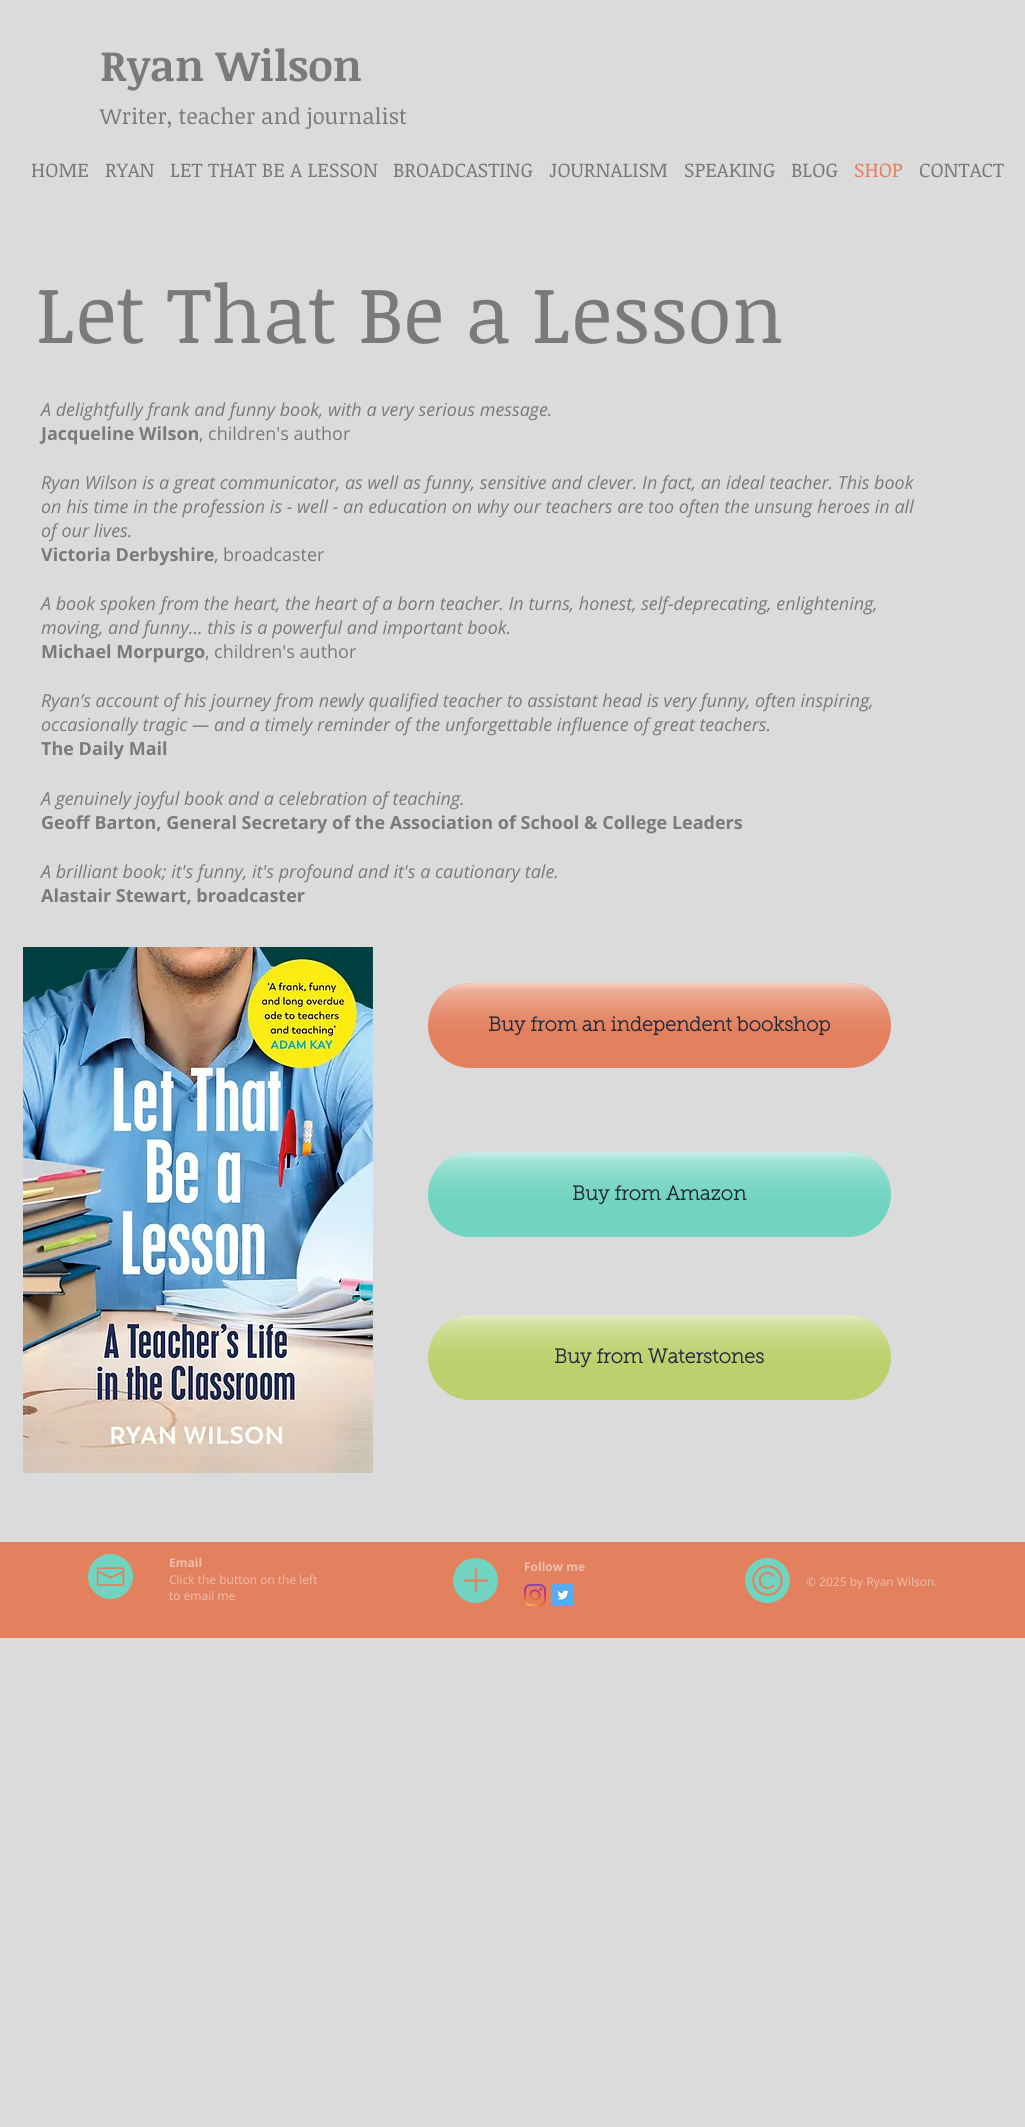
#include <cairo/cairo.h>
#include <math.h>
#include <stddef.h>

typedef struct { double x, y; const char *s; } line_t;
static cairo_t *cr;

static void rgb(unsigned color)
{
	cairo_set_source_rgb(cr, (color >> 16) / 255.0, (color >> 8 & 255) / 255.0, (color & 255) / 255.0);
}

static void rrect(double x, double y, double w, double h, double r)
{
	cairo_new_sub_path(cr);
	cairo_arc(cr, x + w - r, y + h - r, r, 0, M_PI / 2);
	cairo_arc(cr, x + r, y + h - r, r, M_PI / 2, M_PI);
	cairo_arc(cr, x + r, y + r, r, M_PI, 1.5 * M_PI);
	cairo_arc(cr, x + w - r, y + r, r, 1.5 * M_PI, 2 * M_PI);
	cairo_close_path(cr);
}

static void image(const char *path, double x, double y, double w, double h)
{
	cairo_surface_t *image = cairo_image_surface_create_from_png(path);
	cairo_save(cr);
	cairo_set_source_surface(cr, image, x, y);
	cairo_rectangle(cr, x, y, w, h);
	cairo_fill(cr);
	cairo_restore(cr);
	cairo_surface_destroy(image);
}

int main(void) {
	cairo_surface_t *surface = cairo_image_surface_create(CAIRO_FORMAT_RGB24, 1025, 2127);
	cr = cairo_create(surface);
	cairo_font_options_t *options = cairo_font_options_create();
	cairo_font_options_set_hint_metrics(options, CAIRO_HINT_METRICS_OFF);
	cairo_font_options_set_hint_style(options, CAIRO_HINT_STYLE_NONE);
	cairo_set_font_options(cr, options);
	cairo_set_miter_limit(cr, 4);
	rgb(0xdbdbdb);
	cairo_paint(cr);
	image("img/1.png", 23, 947, 350, 526);
	rgb(0xe3815f);
	rrect(428, 983, 463, 85, 42.5);
	cairo_fill(cr);
	image("img/2.png", 428, 983, 463, 45);
	rgb(0x71d4c0);
	rrect(428, 1152, 463, 85, 42.5);
	cairo_fill(cr);
	image("img/3.png", 428, 1152, 463, 44);
	rgb(0xbbd16d);
	rrect(428, 1315, 463, 85, 42.5);
	cairo_fill(cr);
	image("img/4.png", 428, 1315, 463, 45);
	rgb(0xe3815f);
	cairo_rectangle(cr, 0, 1542, 1025, 96);
	cairo_fill(cr);
	image("img/5.png", 88, 1554, 45, 45);
	image("img/6.png", 453, 1558, 45, 45);
	image("img/7.png", 745, 1558, 45, 45);
	image("img/8.png", 524, 1584, 22, 22);
	image("img/9.png", 552, 1584, 22, 22);
	cairo_select_font_face(cr, "Noticia Text", CAIRO_FONT_SLANT_NORMAL, CAIRO_FONT_WEIGHT_BOLD);
	cairo_set_font_size(cr, 43);
	rgb(0x7a7a7a);
	cairo_move_to(cr, 100, 81);
	cairo_show_text(cr, "Ryan Wilson");
	cairo_select_font_face(cr, "Noticia Text", CAIRO_FONT_SLANT_NORMAL, CAIRO_FONT_WEIGHT_NORMAL);
	cairo_set_font_size(cr, 22);
	cairo_move_to(cr, 100, 124);
	cairo_show_text(cr, "Writer, teacher and journalist");
	cairo_set_font_size(cr, 20);
	{
		static const line_t items[] = {
			{31, 177, "HOME"},
			{105, 177, "RYAN"},
			{170, 177, "LET THAT BE A LESSON"},
			{393, 177, "BROADCASTING"},
			{549, 177, "JOURNALISM"},
			{684, 177, "SPEAKING"},
			{791, 177, "BLOG"},
		};
		for (size_t i = 0; i < sizeof items / sizeof *items; i++) {
			cairo_move_to(cr, items[i].x, items[i].y);
			cairo_show_text(cr, items[i].s);
		}
	}
	rgb(0xe3815f);
	cairo_move_to(cr, 854, 177);
	cairo_show_text(cr, "SHOP");
	rgb(0x7a7a7a);
	cairo_move_to(cr, 919, 177);
	cairo_show_text(cr, "CONTACT");
	cairo_set_font_size(cr, 80);
	cairo_move_to(cr, 36, 343);
	cairo_show_text(cr, "Let That Be a Lesson");
	cairo_select_font_face(cr, "Open Sans", CAIRO_FONT_SLANT_ITALIC, CAIRO_FONT_WEIGHT_NORMAL);
	cairo_set_font_size(cr, 18);
	cairo_move_to(cr, 41, 416);
	cairo_show_text(cr, "A delightfully frank and funny book, with a very serious message.");
	cairo_select_font_face(cr, "Open Sans", CAIRO_FONT_SLANT_NORMAL, CAIRO_FONT_WEIGHT_BOLD);
	cairo_move_to(cr, 41, 440);
	cairo_show_text(cr, "Jacqueline Wilson");
	cairo_select_font_face(cr, "Open Sans", CAIRO_FONT_SLANT_NORMAL, CAIRO_FONT_WEIGHT_NORMAL);
	cairo_move_to(cr, 199, 440);
	cairo_show_text(cr, ", children's author");
	cairo_select_font_face(cr, "Open Sans", CAIRO_FONT_SLANT_ITALIC, CAIRO_FONT_WEIGHT_NORMAL);
	{
		static const line_t items[] = {
			{41, 489, "Ryan Wilson is a great communicator, as well as funny, sensitive and clever. In fact, an ideal teacher. This book"},
			{41, 513, "on his time in the profession is - well - an education on why our teachers are too often the unsung heroes in all"},
			{41, 537, "of our lives."},
		};
		for (size_t i = 0; i < sizeof items / sizeof *items; i++) {
			cairo_move_to(cr, items[i].x, items[i].y);
			cairo_show_text(cr, items[i].s);
		}
	}
	cairo_select_font_face(cr, "Open Sans", CAIRO_FONT_SLANT_NORMAL, CAIRO_FONT_WEIGHT_BOLD);
	cairo_move_to(cr, 41, 561);
	cairo_show_text(cr, "Victoria Derbyshire");
	cairo_select_font_face(cr, "Open Sans", CAIRO_FONT_SLANT_NORMAL, CAIRO_FONT_WEIGHT_NORMAL);
	cairo_move_to(cr, 214, 561);
	cairo_show_text(cr, ", broadcaster");
	cairo_select_font_face(cr, "Open Sans", CAIRO_FONT_SLANT_ITALIC, CAIRO_FONT_WEIGHT_NORMAL);
	cairo_move_to(cr, 41, 610);
	cairo_show_text(cr, "A book spoken from the heart, the heart of a born teacher. In turns, honest, self-deprecating, enlightening,");
	cairo_move_to(cr, 41, 634);
	cairo_show_text(cr, "moving, and funny... this is a powerful and important book.");
	cairo_select_font_face(cr, "Open Sans", CAIRO_FONT_SLANT_NORMAL, CAIRO_FONT_WEIGHT_BOLD);
	cairo_move_to(cr, 41, 658);
	cairo_show_text(cr, "Michael Morpurgo");
	cairo_select_font_face(cr, "Open Sans", CAIRO_FONT_SLANT_NORMAL, CAIRO_FONT_WEIGHT_NORMAL);
	cairo_move_to(cr, 205, 658);
	cairo_show_text(cr, ", children's author");
	cairo_select_font_face(cr, "Open Sans", CAIRO_FONT_SLANT_ITALIC, CAIRO_FONT_WEIGHT_NORMAL);
	cairo_move_to(cr, 41, 707);
	cairo_show_text(cr, "Ryan’s account of his journey from newly qualified teacher to assistant head is very funny, often inspiring,");
	cairo_move_to(cr, 41, 731);
	cairo_show_text(cr, "occasionally tragic — and a timely reminder of the unforgettable influence of great teachers.");
	cairo_select_font_face(cr, "Open Sans", CAIRO_FONT_SLANT_NORMAL, CAIRO_FONT_WEIGHT_BOLD);
	cairo_move_to(cr, 41, 755);
	cairo_show_text(cr, "The Daily Mail");
	cairo_select_font_face(cr, "Open Sans", CAIRO_FONT_SLANT_ITALIC, CAIRO_FONT_WEIGHT_NORMAL);
	cairo_move_to(cr, 41, 805);
	cairo_show_text(cr, "A genuinely joyful book and a celebration of teaching.");
	cairo_select_font_face(cr, "Open Sans", CAIRO_FONT_SLANT_NORMAL, CAIRO_FONT_WEIGHT_BOLD);
	cairo_move_to(cr, 41, 829);
	cairo_show_text(cr, "Geoff Barton, General Secretary of the Association of School & College Leaders");
	cairo_select_font_face(cr, "Open Sans", CAIRO_FONT_SLANT_ITALIC, CAIRO_FONT_WEIGHT_NORMAL);
	cairo_move_to(cr, 41, 878);
	cairo_show_text(cr, "A brilliant book; it's funny, it's profound and it's a cautionary tale.");
	cairo_select_font_face(cr, "Open Sans", CAIRO_FONT_SLANT_NORMAL, CAIRO_FONT_WEIGHT_BOLD);
	cairo_move_to(cr, 41, 902);
	cairo_show_text(cr, "Alastair Stewart, broadcaster");
	cairo_select_font_face(cr, "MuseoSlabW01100", CAIRO_FONT_SLANT_NORMAL, CAIRO_FONT_WEIGHT_BOLD);
	cairo_set_font_size(cr, 20);
	rgb(0x252838);
	{
		static const line_t items[] = {
			{488, 1031, "Buy from an independent bookshop"},
			{572, 1200, "Buy from Amazon"},
			{554, 1363, "Buy from Waterstones"},
		};
		for (size_t i = 0; i < sizeof items / sizeof *items; i++) {
			cairo_move_to(cr, items[i].x, items[i].y);
			cairo_show_text(cr, items[i].s);
		}
	}
	cairo_select_font_face(cr, "Open Sans", CAIRO_FONT_SLANT_NORMAL, CAIRO_FONT_WEIGHT_BOLD);
	cairo_set_font_size(cr, 12);
	rgb(0xedbfaf);
	cairo_move_to(cr, 169, 1567);
	cairo_show_text(cr, "Email");
	cairo_select_font_face(cr, "Open Sans", CAIRO_FONT_SLANT_NORMAL, CAIRO_FONT_WEIGHT_NORMAL);
	cairo_move_to(cr, 169, 1584);
	cairo_show_text(cr, "Click the button on the left");
	cairo_move_to(cr, 169, 1600);
	cairo_show_text(cr, "to email me");
	cairo_select_font_face(cr, "Open Sans", CAIRO_FONT_SLANT_NORMAL, CAIRO_FONT_WEIGHT_BOLD);
	cairo_move_to(cr, 524, 1571);
	cairo_show_text(cr, "Follow me");
	cairo_select_font_face(cr, "Open Sans", CAIRO_FONT_SLANT_NORMAL, CAIRO_FONT_WEIGHT_NORMAL);
	cairo_move_to(cr, 806, 1586);
	cairo_show_text(cr, "© 2025 by Ryan Wilson.");
	cairo_surface_write_to_png(surface, "page.png");
	cairo_font_options_destroy(options);
	cairo_destroy(cr);
	cairo_surface_destroy(surface);
	return 0;
}
